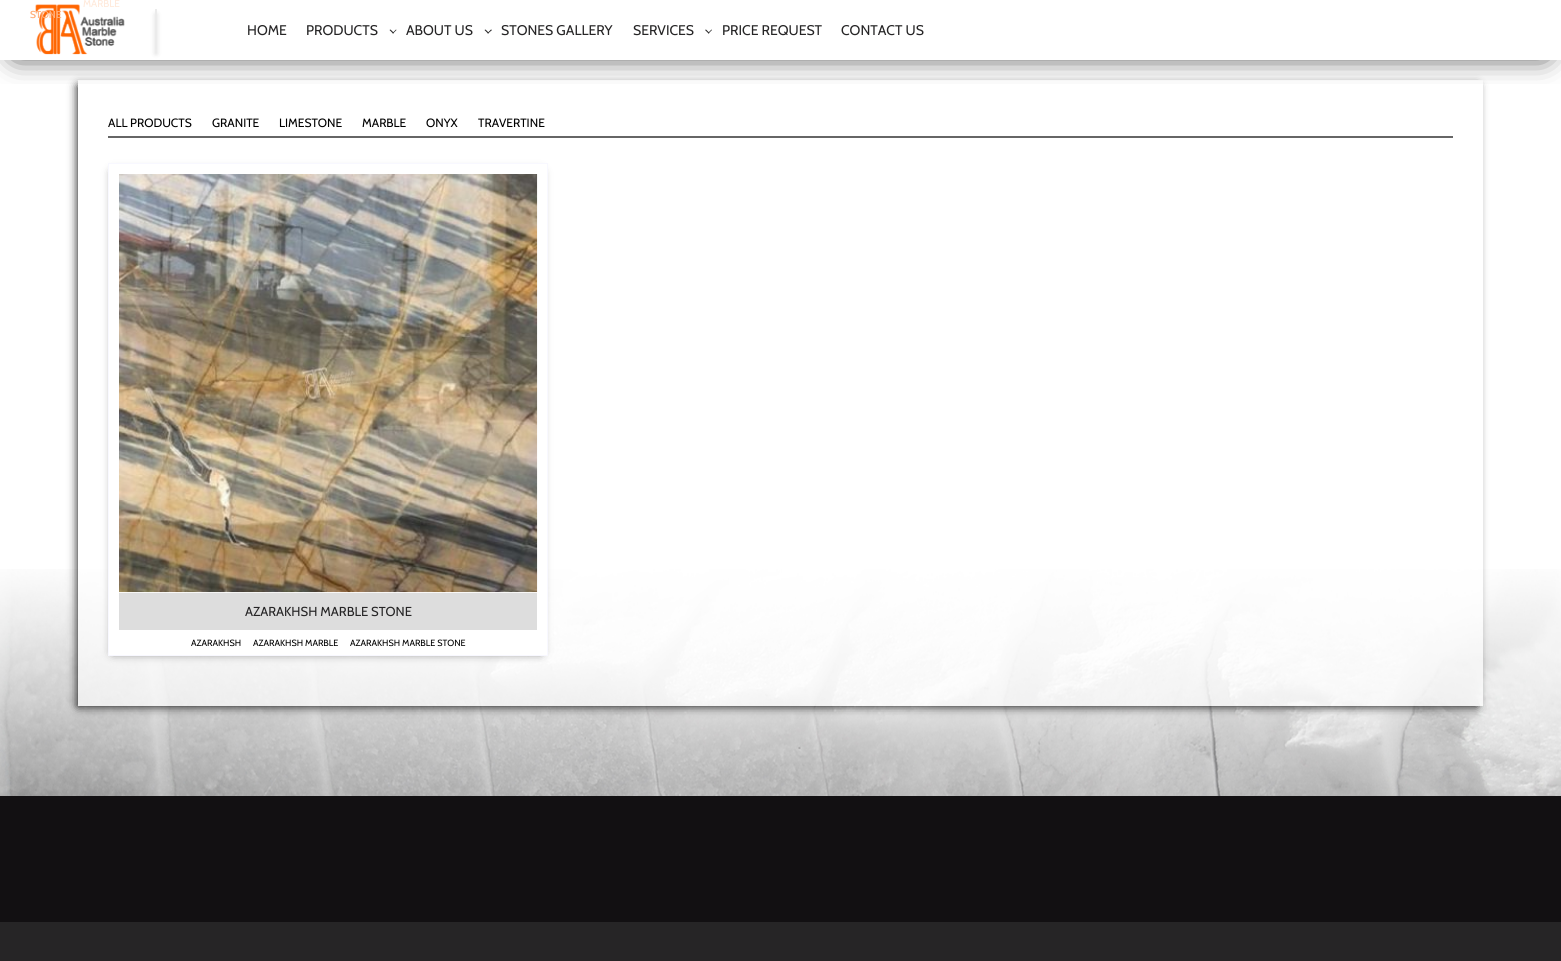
#include <cairo/cairo.h>
#include <math.h>
#include <stddef.h>

typedef struct { double x, y; const char *s; } line_t;
typedef struct { double x, y, w, h; unsigned color; } box_t;
static cairo_t *cr;

static void rgb(unsigned color)
{
	cairo_set_source_rgb(cr, (color >> 16) / 255.0, (color >> 8 & 255) / 255.0, (color & 255) / 255.0);
}

static void rrect(double x, double y, double w, double h, double r)
{
	cairo_new_sub_path(cr);
	cairo_arc(cr, x + w - r, y + h - r, r, 0, M_PI / 2);
	cairo_arc(cr, x + r, y + h - r, r, M_PI / 2, M_PI);
	cairo_arc(cr, x + r, y + r, r, M_PI, 1.5 * M_PI);
	cairo_arc(cr, x + w - r, y + r, r, 1.5 * M_PI, 2 * M_PI);
	cairo_close_path(cr);
}

static void soft_shadow(double x, double y, double w, double h, double r, double blur, double alpha)
{
	cairo_push_group_with_content(cr, CAIRO_CONTENT_ALPHA);
	cairo_set_operator(cr, CAIRO_OPERATOR_SOURCE);
	for (int i = 15; i >= -15 && fmin(w, h) + blur * i / 3 > 0; i -= 2) {
		double e = blur * i / 6;
		cairo_set_source_rgba(cr, 0, 0, 0, alpha * erfc((i - 1) / 8.5) / 2);
		rrect(x - e, y - e, w + 2 * e, h + 2 * e, fmax(0, fmin(r + e + blur * .6, fmin(w, h) / 2 + e)));
		cairo_fill(cr);
	}
	cairo_pattern_t *soft = cairo_pop_group(cr);
	cairo_mask(cr, soft);
	cairo_pattern_destroy(soft);
}

static void image(const char *path, double x, double y, double w, double h)
{
	cairo_surface_t *image = cairo_image_surface_create_from_png(path);
	cairo_save(cr);
	cairo_set_source_surface(cr, image, x, y);
	cairo_rectangle(cr, x, y, w, h);
	cairo_fill(cr);
	cairo_restore(cr);
	cairo_surface_destroy(image);
}

int main(void) {
	cairo_surface_t *surface = cairo_image_surface_create(CAIRO_FORMAT_RGB24, 1561, 961);
	cr = cairo_create(surface);
	cairo_font_options_t *options = cairo_font_options_create();
	cairo_font_options_set_hint_metrics(options, CAIRO_HINT_METRICS_OFF);
	cairo_font_options_set_hint_style(options, CAIRO_HINT_STYLE_NONE);
	cairo_set_font_options(cr, options);
	cairo_set_miter_limit(cr, 4);
	rgb(0xffffff);
	cairo_paint(cr);
	image("img/1.png", 0, 569, 1561, 227);
	cairo_save(cr);
	cairo_rectangle(cr, 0, 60, 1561, 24);
	cairo_clip(cr);
	rgb(0x000000);
	soft_shadow(16, 25, 1529, 28, 0, 15, 1);
	cairo_restore(cr);
	image("img/2.png", 35, 4, 90, 51);
	rgb(0x000000);
	soft_shadow(155, 14, 2, 40, 0, 2.5, 0.13);
	rgb(0xebebeb);
	cairo_rectangle(cr, 155, 9, 2, 40);
	cairo_fill(cr);
	rgb(0x262526);
	cairo_new_path(cr);
	cairo_move_to(cr, 396, 29.5);
	cairo_line_to(cr, 396.5, 30);
	cairo_line_to(cr, 393, 33.5);
	cairo_line_to(cr, 392.5, 33);
	cairo_close_path(cr);
	cairo_fill(cr);
	cairo_new_path(cr);
	cairo_move_to(cr, 390.5, 29.5);
	cairo_line_to(cr, 394, 33);
	cairo_line_to(cr, 393, 33.5);
	cairo_line_to(cr, 389.5, 30);
	cairo_close_path(cr);
	cairo_fill(cr);
	cairo_new_path(cr);
	cairo_move_to(cr, 491, 29.5);
	cairo_line_to(cr, 492, 30);
	cairo_line_to(cr, 488, 33.5);
	cairo_line_to(cr, 487.5, 33);
	cairo_close_path(cr);
	cairo_fill(cr);
	cairo_new_path(cr);
	cairo_move_to(cr, 485.5, 29.5);
	cairo_line_to(cr, 489, 33);
	cairo_line_to(cr, 488, 33.5);
	cairo_line_to(cr, 484.5, 30);
	cairo_close_path(cr);
	cairo_fill(cr);
	cairo_new_path(cr);
	cairo_move_to(cr, 711.5, 29.5);
	cairo_line_to(cr, 712, 30);
	cairo_line_to(cr, 708.5, 33.5);
	cairo_line_to(cr, 708, 33);
	cairo_close_path(cr);
	cairo_fill(cr);
	cairo_new_path(cr);
	cairo_move_to(cr, 706, 29.5);
	cairo_line_to(cr, 709.5, 33);
	cairo_line_to(cr, 708.5, 33.5);
	cairo_line_to(cr, 705, 30);
	cairo_close_path(cr);
	cairo_fill(cr);
	cairo_save(cr);
	cairo_set_fill_rule(cr, CAIRO_FILL_RULE_EVEN_ODD);
	cairo_new_path(cr);
	cairo_move_to(cr, 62, 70);
	cairo_line_to(cr, 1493, 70);
	cairo_line_to(cr, 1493, 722);
	cairo_line_to(cr, 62, 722);
	cairo_close_path(cr);
	cairo_move_to(cr, 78, 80);
	cairo_line_to(cr, 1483, 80);
	cairo_line_to(cr, 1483, 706);
	cairo_line_to(cr, 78, 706);
	cairo_close_path(cr);
	cairo_clip(cr);
	rgb(0x000000);
	soft_shadow(78, 86, 1399, 620, 0, 5, 1);
	cairo_restore(cr);
	cairo_set_source_rgba(cr, 1, 1, 1, 0.65);
	cairo_rectangle(cr, 78, 569, 1405, 137);
	cairo_fill(cr);
	rgb(0x666666);
	cairo_rectangle(cr, 108, 136, 1345, 2);
	cairo_fill(cr);
	rgb(0x666666);
	soft_shadow(113, 172, 428, 481, 0, 5, 1);
	rgb(0xffffff);
	cairo_rectangle(cr, 108.5, 163.5, 439, 492);
	cairo_fill_preserve(cr);
	rgb(0xf8f8ff);
	cairo_set_line_width(cr, 1);
	cairo_stroke(cr);
	image("img/4.png", 119, 174, 419, 419);
	{
		static const box_t items[] = {
			{119, 593, 418, 37, 0xdddddd},
			{0, 796, 1561, 126, 0x121012},
			{0, 922, 1561, 39, 0x262526},
		};
		for (size_t i = 0; i < sizeof items / sizeof *items; i++) {
			rgb(items[i].color);
			cairo_rectangle(cr, items[i].x, items[i].y, items[i].w, items[i].h);
			cairo_fill(cr);
		}
	}
	cairo_select_font_face(cr, "Cabin", CAIRO_FONT_SLANT_NORMAL, CAIRO_FONT_WEIGHT_NORMAL);
	cairo_set_font_size(cr, 10);
	rgb(0xffe9da);
	cairo_move_to(cr, 83, 7);
	cairo_show_text(cr, "MARBLE");
	rgb(0xffcaa7);
	cairo_move_to(cr, 30, 18);
	cairo_show_text(cr, "ST");
	image("img/3.png", 35, 4, 90, 51);
	rgb(0xffb17e);
	cairo_move_to(cr, 30, 18);
	cairo_show_text(cr, "STONE");
	cairo_set_font_size(cr, 14);
	rgb(0x262526);
	{
		static const line_t items[] = {
			{247, 35, "HOME"},
			{306, 35, "PRODUCTS"},
			{406, 35, "ABOUT US"},
			{501, 35, "STONES GALLERY"},
			{633, 35, "SERVICES"},
			{722, 35, "PRICE REQUEST"},
			{841, 35, "CONTACT US"},
		};
		for (size_t i = 0; i < sizeof items / sizeof *items; i++) {
			cairo_move_to(cr, items[i].x, items[i].y);
			cairo_show_text(cr, items[i].s);
		}
	}
	cairo_set_font_size(cr, 12);
	rgb(0x000000);
	{
		static const line_t items[] = {
			{108, 127, "ALL PRODUCTS"},
			{212, 127, "GRANITE"},
			{279, 127, "LIMESTONE"},
			{362, 127, "MARBLE"},
			{426, 127, "ONYX"},
			{478, 127, "TRAVERTINE"},
		};
		for (size_t i = 0; i < sizeof items / sizeof *items; i++) {
			cairo_move_to(cr, items[i].x, items[i].y);
			cairo_show_text(cr, items[i].s);
		}
	}
	cairo_set_font_size(cr, 13);
	rgb(0x262526);
	cairo_move_to(cr, 245, 616);
	cairo_show_text(cr, "AZARAKHSH MARBLE STONE");
	cairo_set_font_size(cr, 9);
	rgb(0x000000);
	{
		static const line_t items[] = {
			{191, 646, "AZARAKHSH"},
			{253, 646, "AZARAKHSH MARBLE"},
			{350, 646, "AZARAKHSH MARBLE STONE"},
		};
		for (size_t i = 0; i < sizeof items / sizeof *items; i++) {
			cairo_move_to(cr, items[i].x, items[i].y);
			cairo_show_text(cr, items[i].s);
		}
	}
	cairo_surface_write_to_png(surface, "page.png");
	cairo_font_options_destroy(options);
	cairo_destroy(cr);
	cairo_surface_destroy(surface);
	return 0;
}
